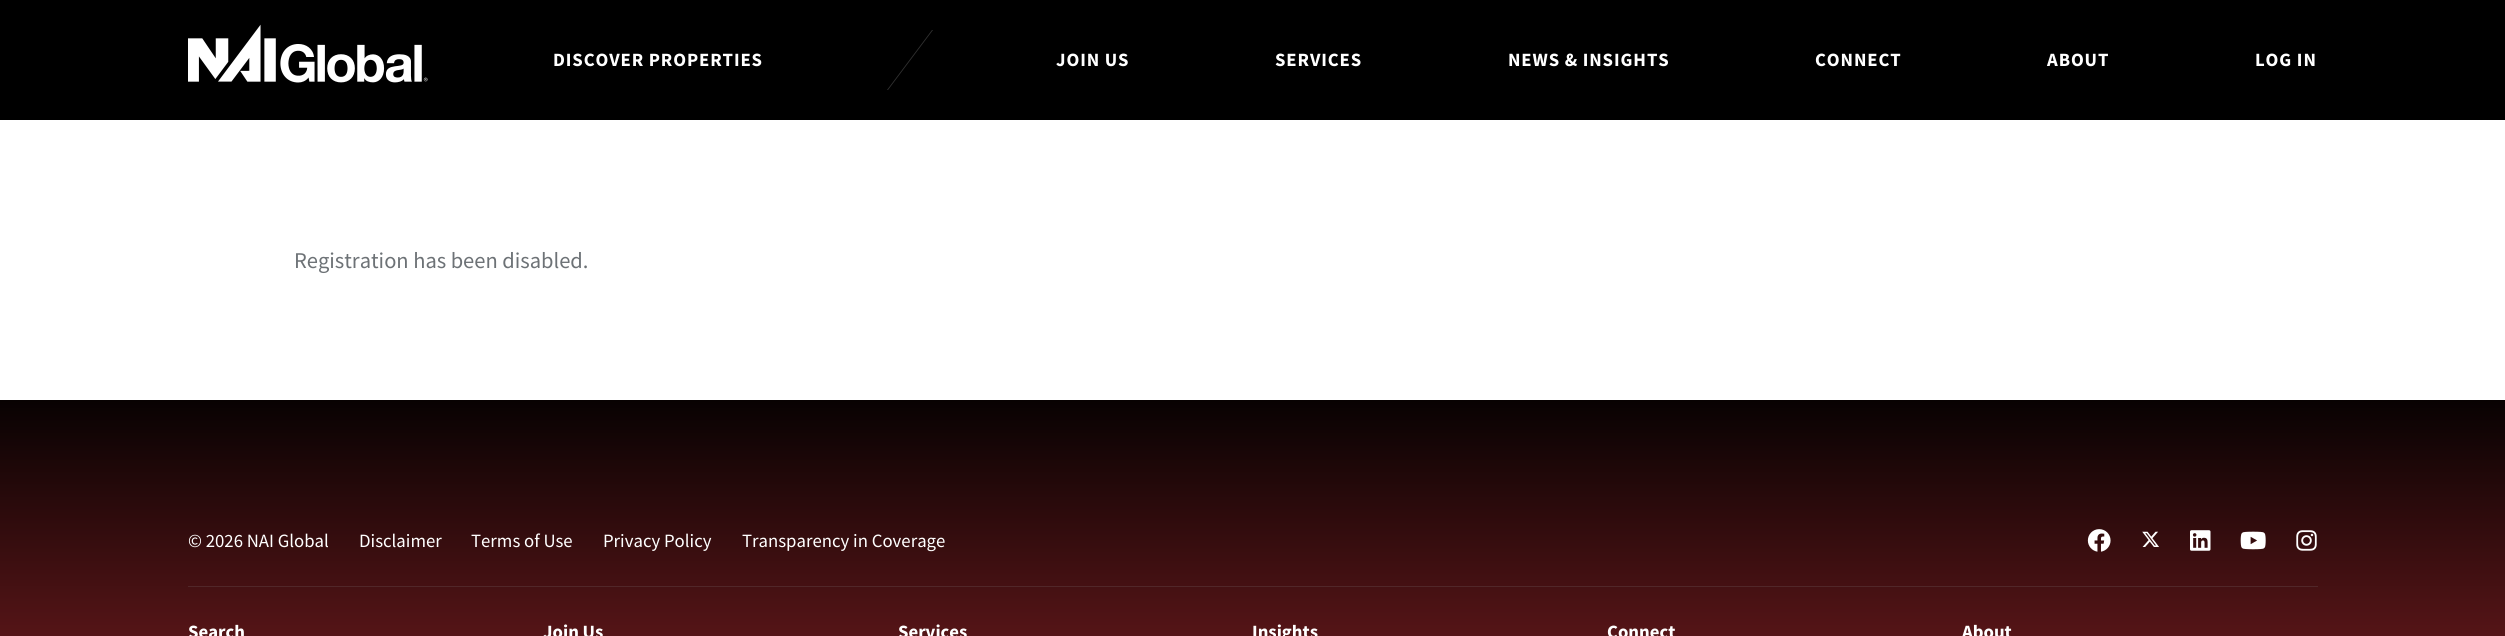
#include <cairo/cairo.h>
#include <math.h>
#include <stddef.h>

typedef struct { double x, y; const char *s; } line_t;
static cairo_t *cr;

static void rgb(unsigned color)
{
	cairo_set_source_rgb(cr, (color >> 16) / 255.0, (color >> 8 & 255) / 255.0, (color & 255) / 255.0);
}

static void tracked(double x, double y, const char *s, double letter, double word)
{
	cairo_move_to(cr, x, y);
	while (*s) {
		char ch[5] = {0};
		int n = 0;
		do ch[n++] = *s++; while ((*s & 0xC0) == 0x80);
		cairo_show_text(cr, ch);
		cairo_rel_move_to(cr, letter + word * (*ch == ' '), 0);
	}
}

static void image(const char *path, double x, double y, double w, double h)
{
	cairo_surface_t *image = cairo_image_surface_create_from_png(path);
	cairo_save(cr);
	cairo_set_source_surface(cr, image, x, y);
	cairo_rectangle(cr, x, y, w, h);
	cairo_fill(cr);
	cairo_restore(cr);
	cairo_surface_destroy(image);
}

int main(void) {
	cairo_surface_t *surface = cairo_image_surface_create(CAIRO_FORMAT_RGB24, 2505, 636);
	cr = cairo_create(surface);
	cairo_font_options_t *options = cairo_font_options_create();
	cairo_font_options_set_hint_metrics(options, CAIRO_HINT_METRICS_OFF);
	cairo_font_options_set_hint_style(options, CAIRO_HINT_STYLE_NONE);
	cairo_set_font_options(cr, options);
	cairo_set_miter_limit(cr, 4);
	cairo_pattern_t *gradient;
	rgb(0x000000);
	cairo_paint(cr);
	gradient = cairo_pattern_create_linear(1253, 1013, 1253, 376);
	cairo_pattern_add_color_stop_rgba(gradient, 0, 0.816, 0.196, 0.22, 1);
	cairo_pattern_add_color_stop_rgba(gradient, 1, 0, 0, 0, 1);
	cairo_set_source(cr, gradient);
	cairo_pattern_destroy(gradient);
	cairo_rectangle(cr, 0, 400, 2505, 236);
	cairo_fill(cr);
	image("img/1.png", 188, 24, 240, 59);
	rgb(0x333333);
	cairo_new_path(cr);
	cairo_move_to(cr, 932, 30);
	cairo_line_to(cr, 933, 30);
	cairo_line_to(cr, 888, 90);
	cairo_line_to(cr, 887, 90);
	cairo_close_path(cr);
	cairo_fill(cr);
	rgb(0xffffff);
	cairo_rectangle(cr, 0, 120, 2505, 280);
	cairo_fill(cr);
	image("img/2.png", 2087, 529, 24, 23);
	image("img/3.png", 2142, 531, 17, 16);
	image("img/4.png", 2190, 530, 21, 21);
	image("img/5.png", 2240, 531, 26, 19);
	image("img/6.png", 2296, 530, 21, 21);
	rgb(0x512729);
	cairo_rectangle(cr, 188, 586, 2130, 1);
	cairo_fill(cr);
	cairo_select_font_face(cr, "Source Sans Pro", CAIRO_FONT_SLANT_NORMAL, CAIRO_FONT_WEIGHT_BOLD);
	cairo_set_font_size(cr, 18.75);
	rgb(0xffffff);
	{
		static const line_t items[] = {
			{553, 66, "DISCOVER PROPERTIES"},
			{1056, 66, "JOIN US"},
			{1275, 66, "SERVICES"},
			{1508, 66, "NEWS & INSIGHTS"},
			{1815, 66, "CONNECT"},
			{2047, 66, "ABOUT"},
			{2255, 66, "LOG IN"},
		};
		for (size_t i = 0; i < sizeof items / sizeof *items; i++) {
			tracked(items[i].x, items[i].y, items[i].s, 0.9, 0);
		}
	}
	cairo_select_font_face(cr, "Source Sans Pro", CAIRO_FONT_SLANT_NORMAL, CAIRO_FONT_WEIGHT_NORMAL);
	cairo_set_font_size(cr, 22.5);
	rgb(0x6d7276);
	cairo_move_to(cr, 294, 268);
	cairo_show_text(cr, "Registration has been disabled.");
	cairo_set_font_size(cr, 18.75);
	rgb(0xffffff);
	{
		static const line_t items[] = {
			{188, 547, "© 2026 NAI Global"},
			{359, 547, "Disclaimer"},
			{471, 547, "Terms of Use"},
			{603, 547, "Privacy Policy"},
			{742, 547, "Transparency in Coverage"},
		};
		for (size_t i = 0; i < sizeof items / sizeof *items; i++) {
			cairo_move_to(cr, items[i].x, items[i].y);
			cairo_show_text(cr, items[i].s);
		}
	}
	cairo_select_font_face(cr, "Source Sans Pro", CAIRO_FONT_SLANT_NORMAL, CAIRO_FONT_WEIGHT_BOLD);
	{
		static const line_t items[] = {
			{188, 638, "Search"},
			{543, 638, "Join Us"},
			{898, 638, "Services"},
			{1252, 638, "Insights"},
			{1607, 638, "Connect"},
			{1962, 638, "About"},
		};
		for (size_t i = 0; i < sizeof items / sizeof *items; i++) {
			cairo_move_to(cr, items[i].x, items[i].y);
			cairo_show_text(cr, items[i].s);
		}
	}
	cairo_surface_write_to_png(surface, "page.png");
	cairo_font_options_destroy(options);
	cairo_destroy(cr);
	cairo_surface_destroy(surface);
	return 0;
}
